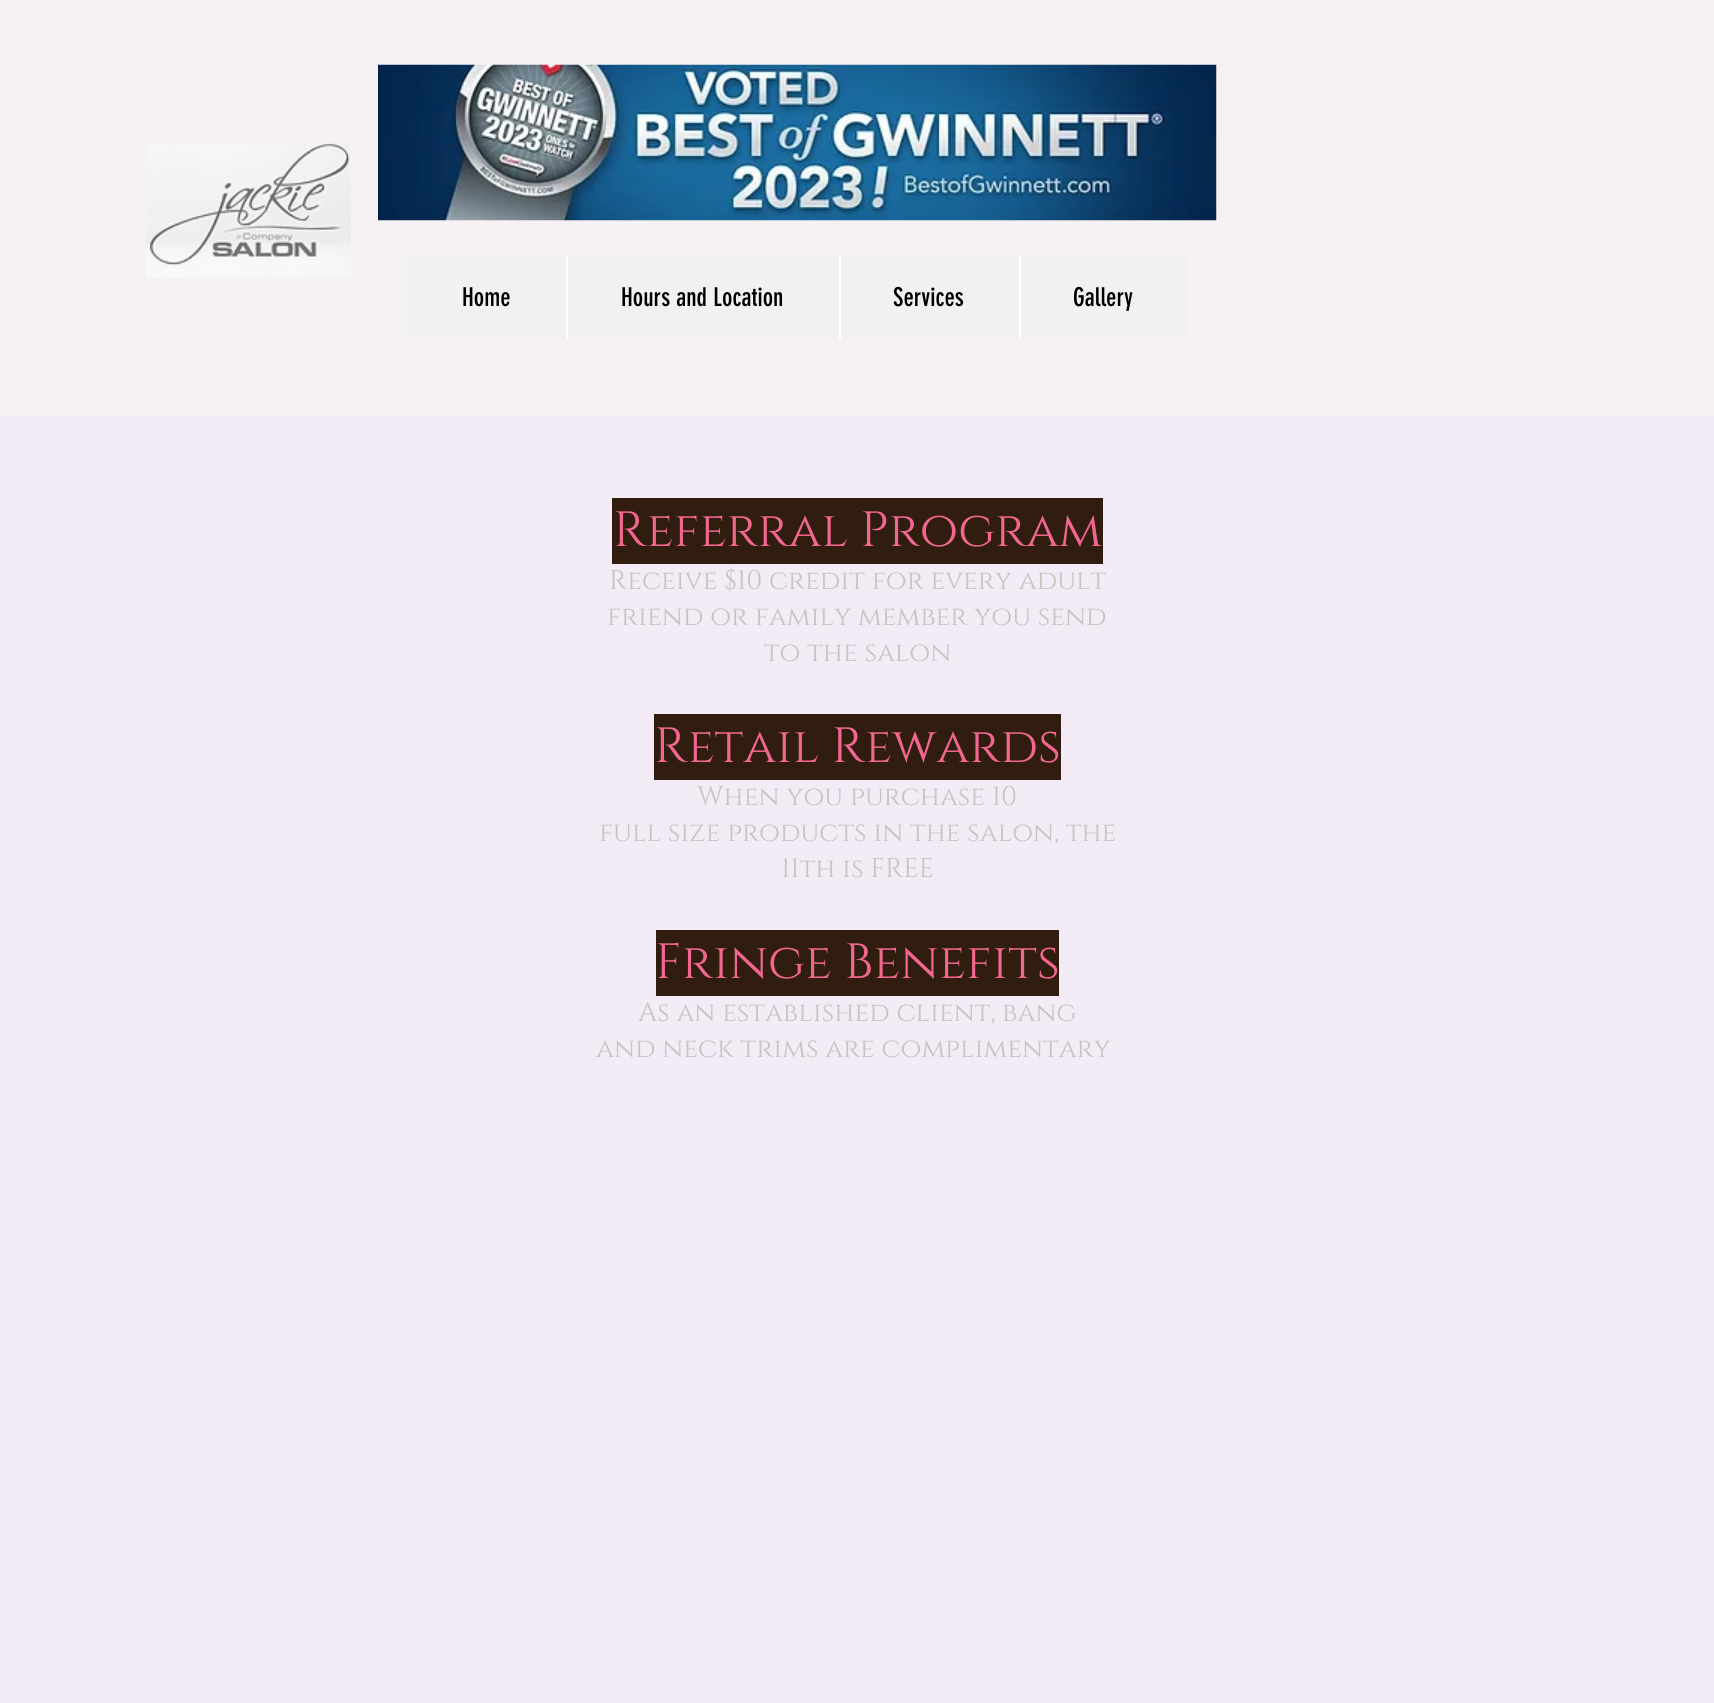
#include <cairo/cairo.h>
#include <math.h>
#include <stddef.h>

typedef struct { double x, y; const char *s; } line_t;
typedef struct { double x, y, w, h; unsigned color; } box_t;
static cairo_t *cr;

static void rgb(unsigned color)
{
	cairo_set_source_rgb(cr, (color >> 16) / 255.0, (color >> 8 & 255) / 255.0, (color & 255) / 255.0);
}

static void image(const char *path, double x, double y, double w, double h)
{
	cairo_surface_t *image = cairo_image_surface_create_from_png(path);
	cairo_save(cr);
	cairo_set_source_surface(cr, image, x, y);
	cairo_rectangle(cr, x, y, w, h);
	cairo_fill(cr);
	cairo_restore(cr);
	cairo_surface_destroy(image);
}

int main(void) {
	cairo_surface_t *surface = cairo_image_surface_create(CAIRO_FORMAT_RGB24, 1714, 1703);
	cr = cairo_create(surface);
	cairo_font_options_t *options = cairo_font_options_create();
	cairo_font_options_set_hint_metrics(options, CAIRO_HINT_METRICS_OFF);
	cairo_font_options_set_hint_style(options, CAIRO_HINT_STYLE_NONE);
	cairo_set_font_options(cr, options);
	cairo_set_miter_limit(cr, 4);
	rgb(0xf3ebf5);
	cairo_paint(cr);
	rgb(0xf6f1f2);
	cairo_rectangle(cr, 0, 0, 1714, 416);
	cairo_fill(cr);
	image("img/1.png", 146, 143, 205, 134);
	image("img/2.png", 378, 64, 839, 157);
	{
		static const box_t items[] = {
			{408, 255, 780, 84, 0xf1f1f1},
			{566, 255, 2, 84, 0xffffff},
			{839, 255, 2, 84, 0xffffff},
			{1019, 255, 2, 84, 0xffffff},
			{612, 498, 491, 66, 0x301d10},
			{654, 714, 407, 66, 0x301d10},
			{656, 930, 403, 66, 0x301d10},
		};
		for (size_t i = 0; i < sizeof items / sizeof *items; i++) {
			rgb(items[i].color);
			cairo_rectangle(cr, items[i].x, items[i].y, items[i].w, items[i].h);
			cairo_fill(cr);
		}
	}
	cairo_select_font_face(cr, "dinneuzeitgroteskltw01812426", CAIRO_FONT_SLANT_NORMAL, CAIRO_FONT_WEIGHT_NORMAL);
	cairo_set_font_size(cr, 25.5);
	rgb(0x000000);
	{
		static const line_t items[] = {
			{462, 306, "Home"},
			{621, 306, "Hours and Location"},
			{893, 306, "Services"},
			{1073, 306, "Gallery"},
		};
		for (size_t i = 0; i < sizeof items / sizeof *items; i++) {
			cairo_move_to(cr, items[i].x, items[i].y);
			cairo_show_text(cr, items[i].s);
		}
	}
	cairo_select_font_face(cr, "Cinzel", CAIRO_FONT_SLANT_NORMAL, CAIRO_FONT_WEIGHT_NORMAL);
	cairo_set_font_size(cr, 49.5);
	rgb(0xf2668f);
	cairo_move_to(cr, 613, 546);
	cairo_show_text(cr, "Referral Program");
	cairo_set_font_size(cr, 27);
	rgb(0xc6c3c1);
	{
		static const line_t items[] = {
			{609, 589, "Receive $10 credit for every adult"},
			{607, 625, "friend or family member you send"},
			{764, 661, "to the salon"},
		};
		for (size_t i = 0; i < sizeof items / sizeof *items; i++) {
			cairo_move_to(cr, items[i].x, items[i].y);
			cairo_show_text(cr, items[i].s);
		}
	}
	cairo_set_font_size(cr, 49.5);
	rgb(0xf2668f);
	cairo_move_to(cr, 654, 762);
	cairo_show_text(cr, "Retail Rewards");
	cairo_set_font_size(cr, 27);
	rgb(0xc6c3c1);
	{
		static const line_t items[] = {
			{697, 805, "When you purchase 10"},
			{599, 841, "full size products in the salon, the"},
			{781, 877, "11th is FREE"},
		};
		for (size_t i = 0; i < sizeof items / sizeof *items; i++) {
			cairo_move_to(cr, items[i].x, items[i].y);
			cairo_show_text(cr, items[i].s);
		}
	}
	cairo_set_font_size(cr, 49.5);
	rgb(0xf2668f);
	cairo_move_to(cr, 655, 978);
	cairo_show_text(cr, "Fringe Benefits");
	cairo_set_font_size(cr, 27);
	rgb(0xc6c3c1);
	cairo_move_to(cr, 638, 1021);
	cairo_show_text(cr, "As an established client, bang");
	cairo_move_to(cr, 596, 1057);
	cairo_show_text(cr, "and neck trims are complimentary");
	cairo_surface_write_to_png(surface, "page.png");
	cairo_font_options_destroy(options);
	cairo_destroy(cr);
	cairo_surface_destroy(surface);
	return 0;
}
